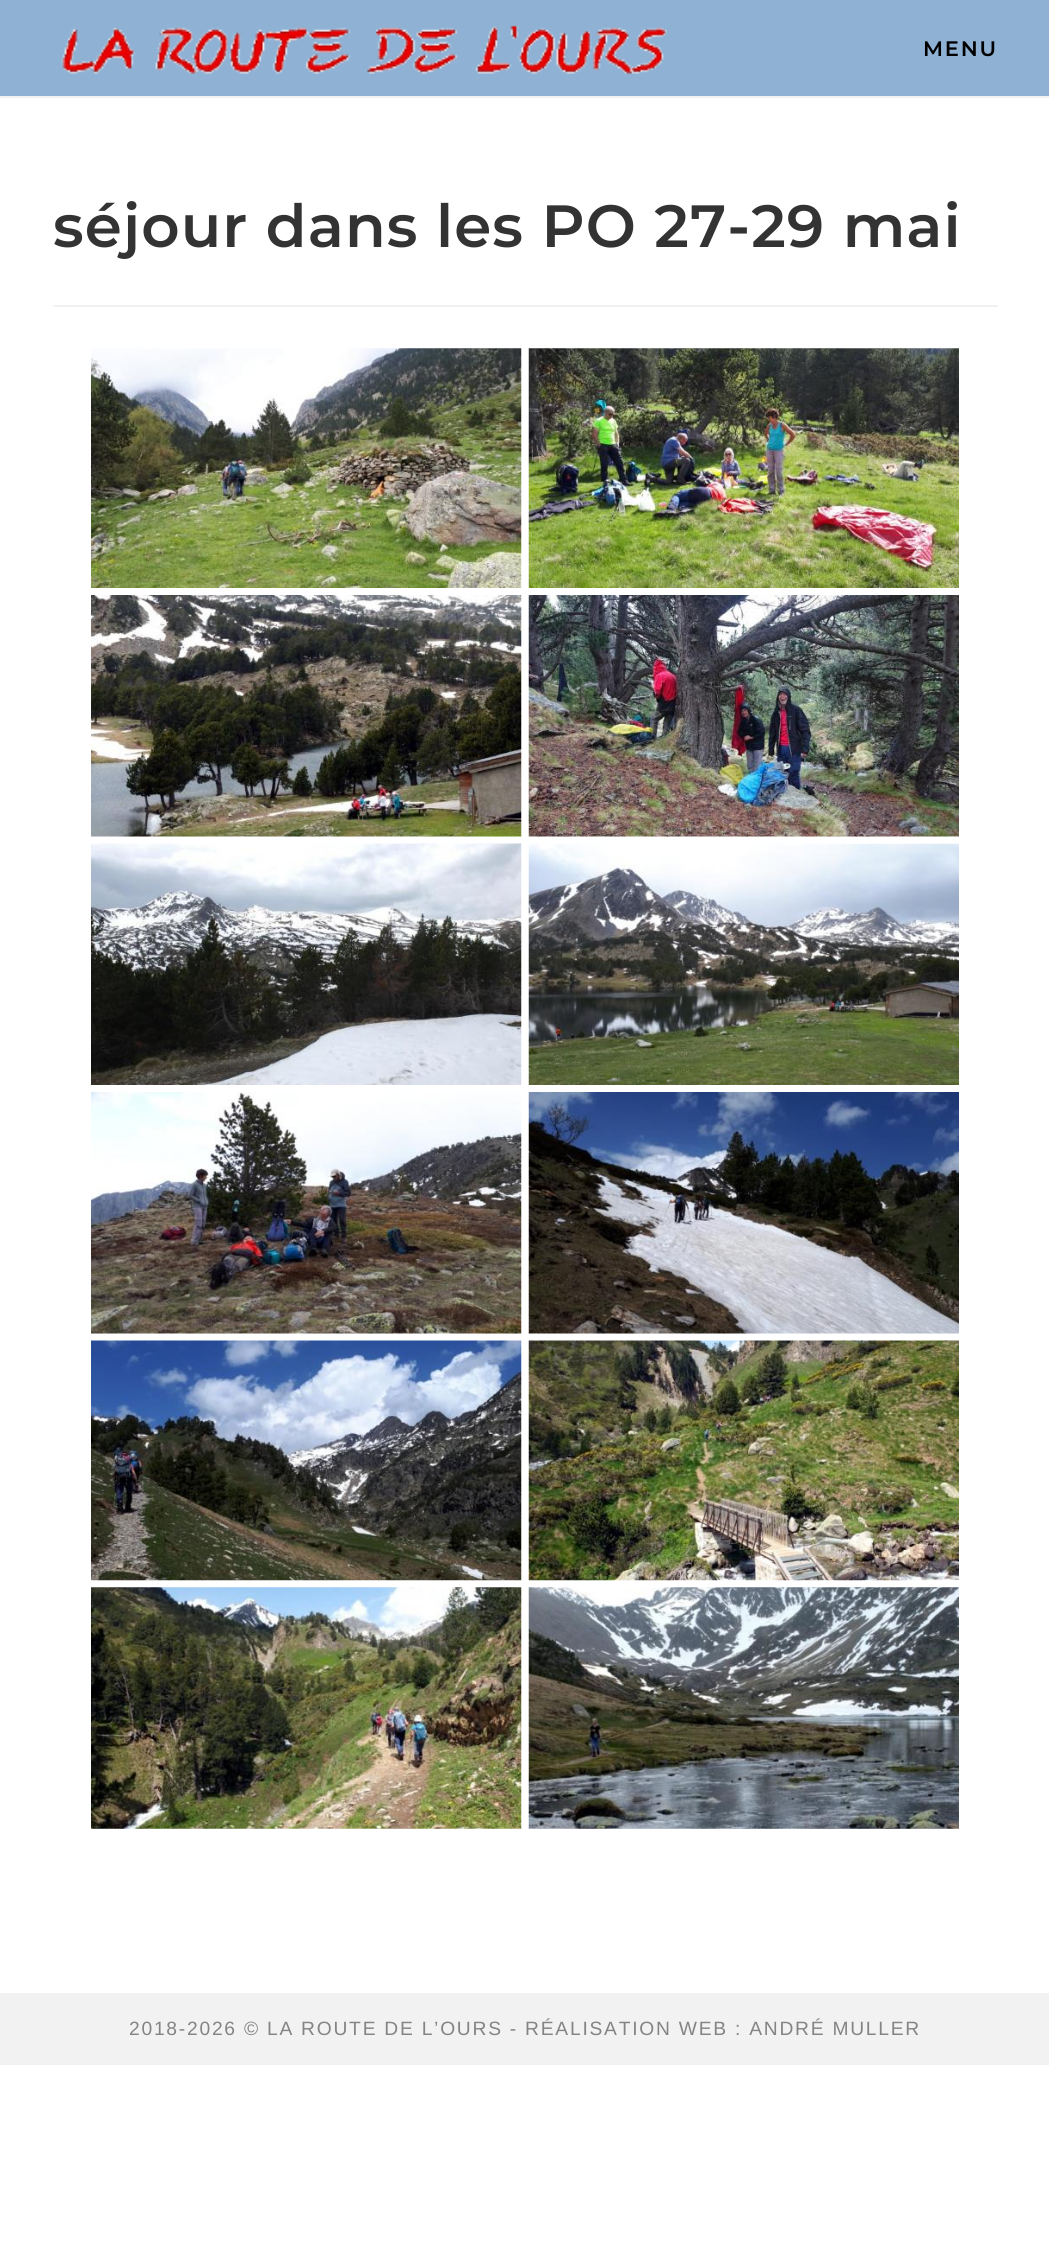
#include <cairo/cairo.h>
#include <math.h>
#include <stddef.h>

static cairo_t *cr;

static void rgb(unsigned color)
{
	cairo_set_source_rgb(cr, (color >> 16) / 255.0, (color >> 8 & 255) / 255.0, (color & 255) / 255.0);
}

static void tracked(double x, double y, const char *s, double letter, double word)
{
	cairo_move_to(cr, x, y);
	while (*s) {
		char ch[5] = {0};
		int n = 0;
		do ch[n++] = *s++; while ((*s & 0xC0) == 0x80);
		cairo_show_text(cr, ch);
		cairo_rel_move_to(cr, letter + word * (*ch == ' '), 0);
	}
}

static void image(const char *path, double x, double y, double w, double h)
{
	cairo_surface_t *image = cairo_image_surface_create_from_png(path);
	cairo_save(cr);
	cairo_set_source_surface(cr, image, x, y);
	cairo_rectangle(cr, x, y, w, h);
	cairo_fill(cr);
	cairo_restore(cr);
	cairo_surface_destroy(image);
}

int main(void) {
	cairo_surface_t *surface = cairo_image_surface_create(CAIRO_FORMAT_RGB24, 1049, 2261);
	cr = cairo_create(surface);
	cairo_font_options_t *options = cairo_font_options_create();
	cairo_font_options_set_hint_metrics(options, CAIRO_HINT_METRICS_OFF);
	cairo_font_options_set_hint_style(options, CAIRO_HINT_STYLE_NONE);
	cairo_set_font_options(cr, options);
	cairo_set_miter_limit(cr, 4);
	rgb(0xffffff);
	cairo_paint(cr);
	rgb(0x8eb1d4);
	cairo_rectangle(cr, 0, 0, 1049, 96);
	cairo_fill(cr);
	rgb(0xf1f1f1);
	cairo_rectangle(cr, 0, 96, 1049, 2);
	cairo_fill(cr);
	image("img/1.png", 61, 25, 606, 49);
	cairo_rectangle(cr, 53, 305, 945, 2);
	cairo_fill(cr);
	image("img/2.png", 91, 348, 431, 240);
	image("img/3.png", 528, 348, 431, 240);
	image("img/4.png", 91, 595, 431, 242);
	image("img/5.png", 528, 595, 431, 242);
	image("img/6.png", 91, 843, 431, 242);
	image("img/7.png", 528, 843, 431, 242);
	image("img/8.png", 91, 1092, 431, 242);
	image("img/9.png", 528, 1092, 431, 242);
	image("img/10.png", 91, 1340, 431, 241);
	image("img/11.png", 528, 1340, 431, 241);
	image("img/12.png", 91, 1587, 431, 242);
	image("img/13.png", 528, 1587, 431, 242);
	rgb(0xf2f2f2);
	cairo_rectangle(cr, 0, 1993, 1049, 72);
	cairo_fill(cr);
	cairo_select_font_face(cr, "Montserrat SemiBold", CAIRO_FONT_SLANT_NORMAL, CAIRO_FONT_WEIGHT_NORMAL);
	cairo_set_font_size(cr, 21);
	rgb(0x000000);
	tracked(923, 56, "MENU", 1.75, 0);
	cairo_set_font_size(cr, 59.5);
	rgb(0x333333);
	tracked(53, 247, "séjour dans les PO 27-29 mai", 1.05, 0);
	cairo_select_font_face(cr, "Liberation Sans", CAIRO_FONT_SLANT_NORMAL, CAIRO_FONT_WEIGHT_NORMAL);
	cairo_set_font_size(cr, 19.25);
	rgb(0x848484);
	tracked(129, 2035, "2018-2026 © LA ROUTE DE L’OURS - RÉALISATION WEB : ANDRÉ MULLER", 1.75, 0);
	cairo_surface_write_to_png(surface, "page.png");
	cairo_font_options_destroy(options);
	cairo_destroy(cr);
	cairo_surface_destroy(surface);
	return 0;
}
